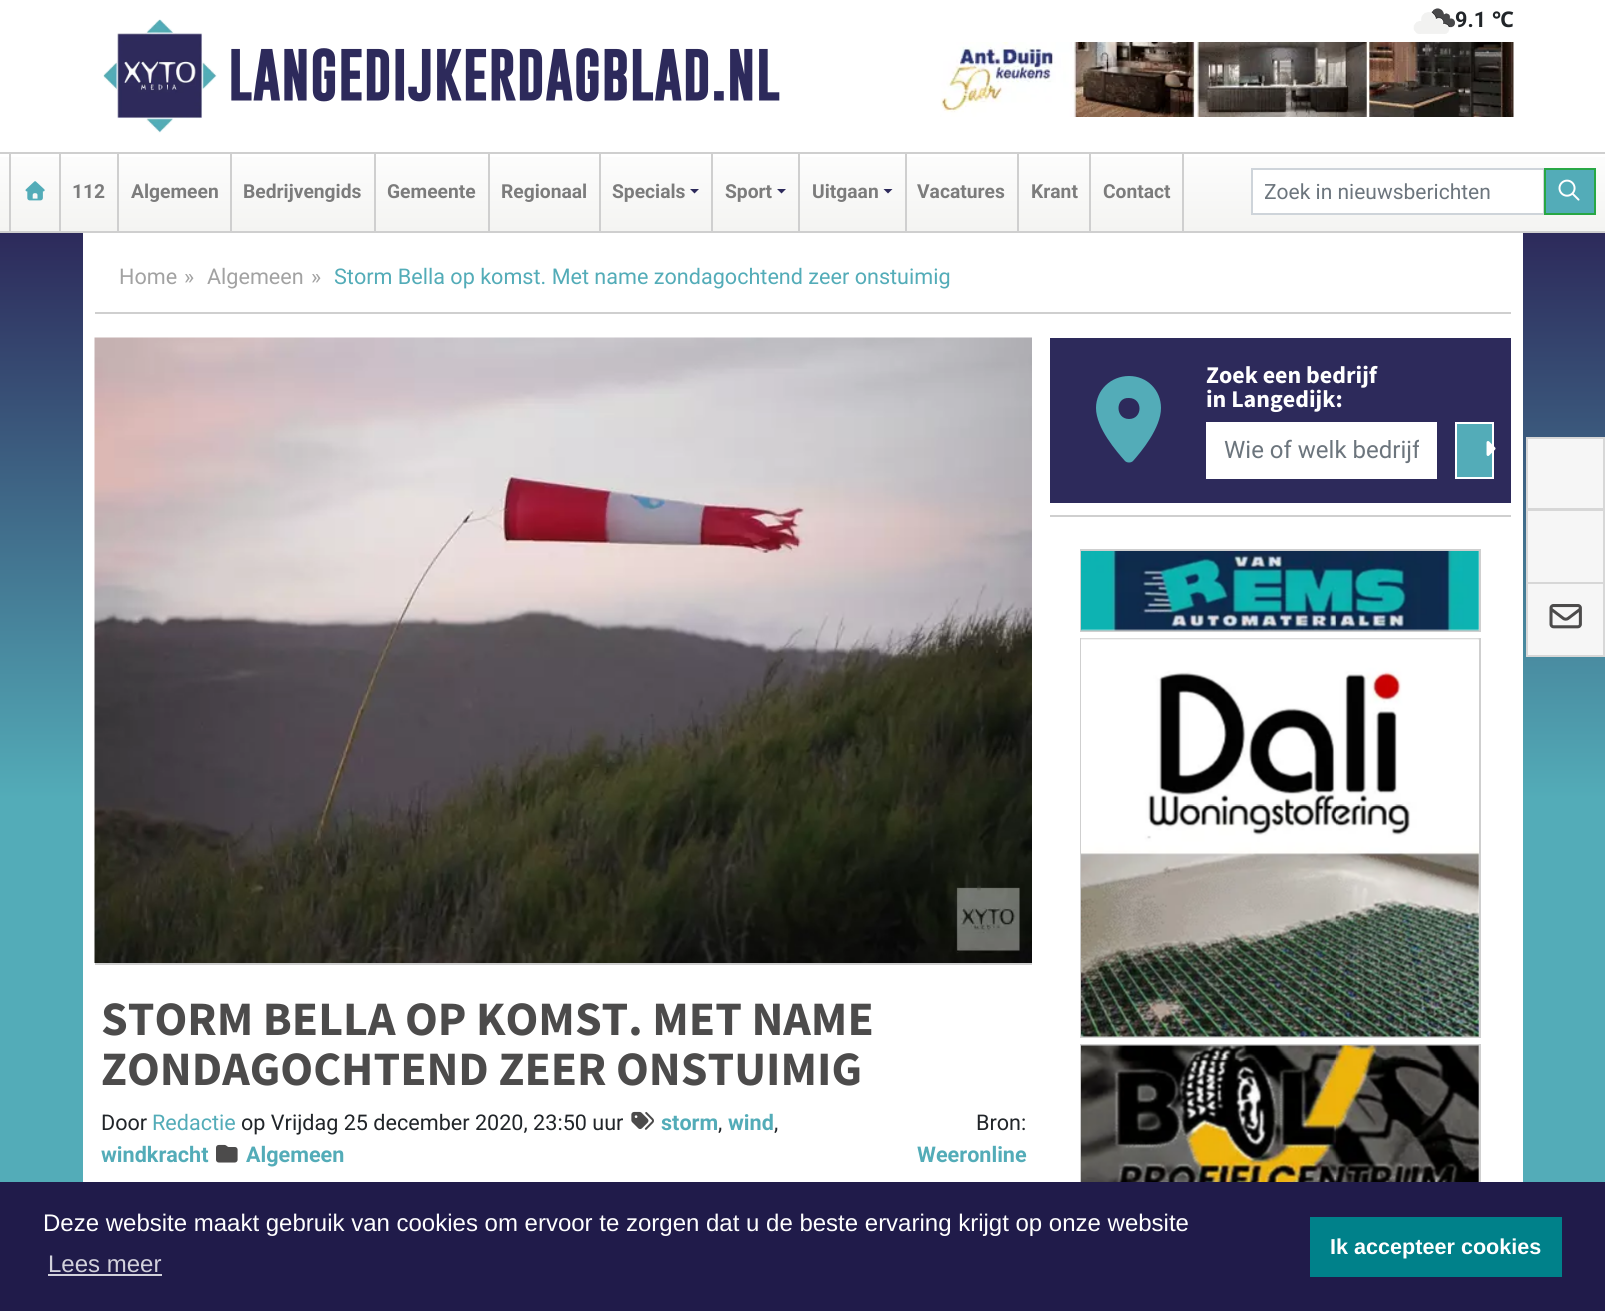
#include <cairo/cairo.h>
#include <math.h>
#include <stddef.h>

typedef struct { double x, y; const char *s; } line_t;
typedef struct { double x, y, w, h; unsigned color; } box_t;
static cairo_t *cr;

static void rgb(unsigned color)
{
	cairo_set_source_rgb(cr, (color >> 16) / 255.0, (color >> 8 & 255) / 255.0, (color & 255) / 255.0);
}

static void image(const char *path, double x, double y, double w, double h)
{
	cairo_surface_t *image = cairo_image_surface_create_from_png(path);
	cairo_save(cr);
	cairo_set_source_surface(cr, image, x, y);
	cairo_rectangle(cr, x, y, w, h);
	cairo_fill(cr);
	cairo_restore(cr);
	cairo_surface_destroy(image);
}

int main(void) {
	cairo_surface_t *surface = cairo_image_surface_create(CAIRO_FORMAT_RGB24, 1605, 1311);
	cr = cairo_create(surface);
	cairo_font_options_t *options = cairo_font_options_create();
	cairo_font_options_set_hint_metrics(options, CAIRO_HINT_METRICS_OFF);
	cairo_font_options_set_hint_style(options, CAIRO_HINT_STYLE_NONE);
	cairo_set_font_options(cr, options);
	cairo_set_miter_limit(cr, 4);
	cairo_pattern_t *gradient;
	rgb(0xffffff);
	cairo_paint(cr);
	image("img/1.png", 1413, 8, 42, 26);
	image("img/2.png", 940, 42, 574, 75);
	image("img/3.png", 103, 19, 114, 114);
	gradient = cairo_pattern_create_linear(803, 153, 803, 231);
	cairo_pattern_add_color_stop_rgba(gradient, 0, 0.992, 0.992, 0.992, 1);
	cairo_pattern_add_color_stop_rgba(gradient, 1, 0.957, 0.957, 0.949, 1);
	cairo_set_source(cr, gradient);
	cairo_pattern_destroy(gradient);
	cairo_rectangle(cr, 0, 157, 1605, 74);
	cairo_fill(cr);
	{
		static const box_t items[] = {
			{0, 152, 1605, 2, 0xcfcfcf},
			{0, 231, 1605, 2, 0xcfcfcf},
			{59, 153, 2, 78, 0xcfcfcf},
			{9, 153, 2, 78, 0xcfcfcf},
		};
		for (size_t i = 0; i < sizeof items / sizeof *items; i++) {
			rgb(items[i].color);
			cairo_rectangle(cr, items[i].x, items[i].y, items[i].w, items[i].h);
			cairo_fill(cr);
		}
	}
	image("img/4.png", 25, 181, 20, 20);
	{
		static const box_t items[] = {
			{117, 153, 2, 78, 0xcfcfcf},
			{230, 153, 2, 78, 0xcfcfcf},
			{374, 153, 2, 78, 0xcfcfcf},
			{488, 153, 2, 78, 0xcfcfcf},
			{599, 153, 2, 78, 0xcfcfcf},
			{711, 153, 2, 78, 0xcfcfcf},
		};
		for (size_t i = 0; i < sizeof items / sizeof *items; i++) {
			rgb(items[i].color);
			cairo_rectangle(cr, items[i].x, items[i].y, items[i].w, items[i].h);
			cairo_fill(cr);
		}
	}
	rgb(0x2d2a5b);
	cairo_new_path(cr);
	cairo_move_to(cr, 690, 189);
	cairo_line_to(cr, 699, 189);
	cairo_line_to(cr, 694.5, 193.5);
	cairo_close_path(cr);
	cairo_fill(cr);
	rgb(0xcfcfcf);
	cairo_rectangle(cr, 798, 153, 2, 78);
	cairo_fill(cr);
	rgb(0x2d2a5b);
	cairo_new_path(cr);
	cairo_move_to(cr, 777, 189);
	cairo_line_to(cr, 786, 189);
	cairo_line_to(cr, 781.5, 193.5);
	cairo_close_path(cr);
	cairo_fill(cr);
	rgb(0xcfcfcf);
	cairo_rectangle(cr, 905, 153, 2, 78);
	cairo_fill(cr);
	rgb(0x2d2a5b);
	cairo_new_path(cr);
	cairo_move_to(cr, 883.5, 189);
	cairo_line_to(cr, 892.5, 189);
	cairo_line_to(cr, 888, 193.5);
	cairo_close_path(cr);
	cairo_fill(cr);
	{
		static const box_t items[] = {
			{1017, 153, 2, 78, 0xcfcfcf},
			{1089, 153, 2, 78, 0xcfcfcf},
			{1182, 153, 2, 78, 0xcfcfcf},
		};
		for (size_t i = 0; i < sizeof items / sizeof *items; i++) {
			rgb(items[i].color);
			cairo_rectangle(cr, items[i].x, items[i].y, items[i].w, items[i].h);
			cairo_fill(cr);
		}
	}
	rgb(0xffffff);
	cairo_rectangle(cr, 1252, 169, 292, 45);
	cairo_fill_preserve(cr);
	rgb(0xced4da);
	cairo_stroke(cr);
	rgb(0x53acb8);
	cairo_rectangle(cr, 1545, 169, 50, 45);
	cairo_fill_preserve(cr);
	rgb(0x28a745);
	cairo_stroke(cr);
	image("img/5.png", 1558, 179, 22, 22);
	gradient = cairo_pattern_create_linear(802, 233, 803, 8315);
	cairo_pattern_add_color_stop_rgba(gradient, 0, 0.176, 0.165, 0.357, 1);
	cairo_pattern_add_color_stop_rgba(gradient, 0.07, 0.325, 0.675, 0.722, 1);
	cairo_set_source(cr, gradient);
	cairo_pattern_destroy(gradient);
	cairo_rectangle(cr, 0, 233, 1605, 949);
	cairo_fill(cr);
	{
		static const box_t items[] = {
			{83, 233, 1440, 949, 0xffffff},
			{95, 312, 1416, 2, 0xcfcfcf},
			{1050, 338, 461, 165, 0x2d2a5b},
		};
		for (size_t i = 0; i < sizeof items / sizeof *items; i++) {
			rgb(items[i].color);
			cairo_rectangle(cr, items[i].x, items[i].y, items[i].w, items[i].h);
			cairo_fill(cr);
		}
	}
	rgb(0x53acb8);
	cairo_new_path(cr);
	cairo_move_to(cr, 1096, 408);
	cairo_curve_to(cr, 1096, 390, 1111, 376, 1129, 376);
	cairo_curve_to(cr, 1147, 376, 1161, 390, 1161, 408);
	cairo_curve_to(cr, 1161, 428, 1141, 452, 1133, 461);
	cairo_curve_to(cr, 1131, 463, 1127, 463, 1125, 461);
	cairo_curve_to(cr, 1117, 452, 1096, 428, 1096, 408);
	cairo_close_path(cr);
	cairo_move_to(cr, 1129, 419);
	cairo_curve_to(cr, 1143, 419, 1143, 398, 1129, 398);
	cairo_curve_to(cr, 1115, 397, 1115, 419, 1129, 419);
	cairo_close_path(cr);
	cairo_fill(cr);
	rgb(0xffffff);
	cairo_rectangle(cr, 1206, 422, 231, 57);
	cairo_fill(cr);
	rgb(0x53acb8);
	cairo_rectangle(cr, 1456, 423, 37, 55);
	cairo_fill_preserve(cr);
	rgb(0xffffff);
	cairo_stroke(cr);
	image("img/6.png", 1486, 441, 10, 15);
	rgb(0xcfcfcf);
	cairo_rectangle(cr, 1050, 515, 461, 2);
	cairo_fill(cr);
	cairo_rectangle(cr, 1081, 550, 399, 81);
	cairo_stroke(cr);
	image("img/7.png", 1081, 551, 398, 80);
	cairo_rectangle(cr, 1081, 639, 399, 398);
	cairo_stroke(cr);
	image("img/8.png", 1081, 638, 398, 399);
	cairo_rectangle(cr, 1081, 1045, 399, 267);
	cairo_stroke(cr);
	image("img/9.png", 1081, 1045, 398, 137);
	cairo_rectangle(cr, 95, 963, 937, 2);
	cairo_fill(cr);
	image("img/10.png", 94, 337, 938, 626);
	image("img/11.png", 631, 1111, 23, 19);
	image("img/12.png", 216, 1144, 22, 19);
	rgb(0xf6f6f6);
	cairo_rectangle(cr, 1527, 438, 77, 71);
	cairo_fill_preserve(cr);
	rgb(0xd7d7d7);
	cairo_stroke(cr);
	rgb(0xf6f6f6);
	cairo_rectangle(cr, 1527, 510, 77, 73);
	cairo_fill_preserve(cr);
	rgb(0xd7d7d7);
	cairo_stroke(cr);
	rgb(0xf6f6f6);
	cairo_rectangle(cr, 1527, 583, 77, 73);
	cairo_fill_preserve(cr);
	rgb(0xd7d7d7);
	cairo_stroke(cr);
	image("img/13.png", 1549, 604, 33, 25);
	{
		static const box_t items[] = {
			{0, 1182, 1605, 129, 0x201b4a},
			{48, 1274, 114, 2, 0xd2d1db},
			{1310, 1217, 252, 60, 0x00818a},
		};
		for (size_t i = 0; i < sizeof items / sizeof *items; i++) {
			rgb(items[i].color);
			cairo_rectangle(cr, items[i].x, items[i].y, items[i].w, items[i].h);
			cairo_fill(cr);
		}
	}
	cairo_select_font_face(cr, "Roboto", CAIRO_FONT_SLANT_NORMAL, CAIRO_FONT_WEIGHT_BOLD);
	cairo_set_font_size(cr, 21.6);
	rgb(0x212529);
	cairo_move_to(cr, 1455, 27);
	cairo_show_text(cr, "9.1");
	cairo_select_font_face(cr, "Noto Sans", CAIRO_FONT_SLANT_NORMAL, CAIRO_FONT_WEIGHT_BOLD);
	cairo_move_to(cr, 1492, 27);
	cairo_show_text(cr, "℃");
	cairo_select_font_face(cr, "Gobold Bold", CAIRO_FONT_SLANT_NORMAL, CAIRO_FONT_WEIGHT_BOLD);
	cairo_set_font_size(cr, 52.75);
	rgb(0x2d2a5b);
	cairo_move_to(cr, 228, 100);
	cairo_show_text(cr, "LANGEDIJKERDAGBLAD.NL");
	cairo_select_font_face(cr, "Roboto", CAIRO_FONT_SLANT_NORMAL, CAIRO_FONT_WEIGHT_BOLD);
	cairo_set_font_size(cr, 19.25);
	rgb(0x7c7c7c);
	{
		static const line_t items[] = {
			{72, 198, "112"},
			{131, 198, "Algemeen"},
			{243, 198, "Bedrijvengids"},
			{387, 198, "Gemeente"},
			{501, 198, "Regionaal"},
			{612, 198, "Specials"},
			{725, 198, "Sport"},
			{812, 198, "Uitgaan"},
			{917, 198, "Vacatures"},
			{1031, 198, "Krant"},
			{1103, 198, "Contact"},
		};
		for (size_t i = 0; i < sizeof items / sizeof *items; i++) {
			cairo_move_to(cr, items[i].x, items[i].y);
			cairo_show_text(cr, items[i].s);
		}
	}
	cairo_save(cr);
	cairo_rectangle(cr, 1265, 180, 267, 24);
	cairo_clip(cr);
	cairo_select_font_face(cr, "Roboto", CAIRO_FONT_SLANT_NORMAL, CAIRO_FONT_WEIGHT_NORMAL);
	cairo_set_font_size(cr, 21);
	rgb(0x6c757d);
	cairo_move_to(cr, 1264, 199);
	cairo_show_text(cr, "Zoek in nieuwsberichten");
	cairo_restore(cr);
	cairo_select_font_face(cr, "Roboto", CAIRO_FONT_SLANT_NORMAL, CAIRO_FONT_WEIGHT_NORMAL);
	cairo_set_font_size(cr, 21.6);
	rgb(0xa2a2a2);
	{
		static const line_t items[] = {
			{119, 284, "Home"},
			{184, 284, "»"},
			{207, 284, "Algemeen"},
			{311, 284, "»"},
		};
		for (size_t i = 0; i < sizeof items / sizeof *items; i++) {
			cairo_move_to(cr, items[i].x, items[i].y);
			cairo_show_text(cr, items[i].s);
		}
	}
	rgb(0x53acb8);
	cairo_move_to(cr, 334, 284);
	cairo_show_text(cr, "Storm Bella op komst. Met name zondagochtend zeer onstuimig");
	cairo_select_font_face(cr, "Source Sans Pro", CAIRO_FONT_SLANT_NORMAL, CAIRO_FONT_WEIGHT_BOLD);
	cairo_set_font_size(cr, 24);
	rgb(0xffffff);
	cairo_move_to(cr, 1206, 383);
	cairo_show_text(cr, "Zoek een bedrijf");
	cairo_move_to(cr, 1206, 407);
	cairo_show_text(cr, "in Langedijk:");
	cairo_save(cr);
	cairo_rectangle(cr, 1224, 437, 195, 28);
	cairo_clip(cr);
	cairo_select_font_face(cr, "Roboto", CAIRO_FONT_SLANT_NORMAL, CAIRO_FONT_WEIGHT_NORMAL);
	rgb(0x6c757d);
	cairo_move_to(cr, 1224, 458);
	cairo_show_text(cr, "Wie of welk bedrijf");
	cairo_restore(cr);
	cairo_set_font_size(cr, 48);
	rgb(0x4c4b4b);
	cairo_move_to(cr, 101, 1035);
	cairo_show_text(cr, "STORM BELLA OP KOMST. MET NAME");
	cairo_move_to(cr, 101, 1085);
	cairo_show_text(cr, "ZONDAGOCHTEND ZEER ONSTUIMIG");
	cairo_select_font_face(cr, "Roboto", CAIRO_FONT_SLANT_NORMAL, CAIRO_FONT_WEIGHT_NORMAL);
	cairo_set_font_size(cr, 21.6);
	rgb(0x212529);
	cairo_move_to(cr, 101, 1130);
	cairo_show_text(cr, "Door");
	rgb(0x53acb8);
	cairo_move_to(cr, 152, 1130);
	cairo_show_text(cr, "Redactie");
	rgb(0x212529);
	cairo_move_to(cr, 241, 1130);
	cairo_show_text(cr, "op Vrijdag 25 december 2020, 23:50 uur");
	cairo_select_font_face(cr, "Roboto", CAIRO_FONT_SLANT_NORMAL, CAIRO_FONT_WEIGHT_BOLD);
	rgb(0x53acb8);
	cairo_move_to(cr, 661, 1130);
	cairo_show_text(cr, "storm");
	cairo_select_font_face(cr, "Roboto", CAIRO_FONT_SLANT_NORMAL, CAIRO_FONT_WEIGHT_NORMAL);
	rgb(0x212529);
	cairo_move_to(cr, 718, 1130);
	cairo_show_text(cr, ",");
	cairo_select_font_face(cr, "Roboto", CAIRO_FONT_SLANT_NORMAL, CAIRO_FONT_WEIGHT_BOLD);
	rgb(0x53acb8);
	cairo_move_to(cr, 728, 1130);
	cairo_show_text(cr, "wind");
	cairo_select_font_face(cr, "Roboto", CAIRO_FONT_SLANT_NORMAL, CAIRO_FONT_WEIGHT_NORMAL);
	rgb(0x212529);
	cairo_move_to(cr, 774, 1130);
	cairo_show_text(cr, ",");
	cairo_select_font_face(cr, "Roboto", CAIRO_FONT_SLANT_NORMAL, CAIRO_FONT_WEIGHT_BOLD);
	rgb(0x53acb8);
	cairo_move_to(cr, 101, 1162);
	cairo_show_text(cr, "windkracht");
	cairo_move_to(cr, 246, 1162);
	cairo_show_text(cr, "Algemeen");
	cairo_select_font_face(cr, "Roboto", CAIRO_FONT_SLANT_NORMAL, CAIRO_FONT_WEIGHT_NORMAL);
	rgb(0x212529);
	cairo_move_to(cr, 976, 1130);
	cairo_show_text(cr, "Bron:");
	cairo_select_font_face(cr, "Roboto", CAIRO_FONT_SLANT_NORMAL, CAIRO_FONT_WEIGHT_BOLD);
	rgb(0x53acb8);
	cairo_move_to(cr, 917, 1162);
	cairo_show_text(cr, "Weeronline");
	cairo_select_font_face(cr, "Liberation Sans", CAIRO_FONT_SLANT_NORMAL, CAIRO_FONT_WEIGHT_NORMAL);
	cairo_set_font_size(cr, 24);
	rgb(0xffffff);
	cairo_move_to(cr, 43, 1231);
	cairo_show_text(cr, "Deze website maakt gebruik van cookies om ervoor te zorgen dat u de beste ervaring krijgt op onze website");
	rgb(0xd2d1db);
	cairo_move_to(cr, 48, 1272);
	cairo_show_text(cr, "Lees meer");
	cairo_select_font_face(cr, "Liberation Sans", CAIRO_FONT_SLANT_NORMAL, CAIRO_FONT_WEIGHT_BOLD);
	cairo_set_font_size(cr, 21.6);
	rgb(0xffffff);
	cairo_move_to(cr, 1330, 1254);
	cairo_show_text(cr, "Ik accepteer cookies");
	cairo_surface_write_to_png(surface, "page.png");
	cairo_font_options_destroy(options);
	cairo_destroy(cr);
	cairo_surface_destroy(surface);
	return 0;
}
